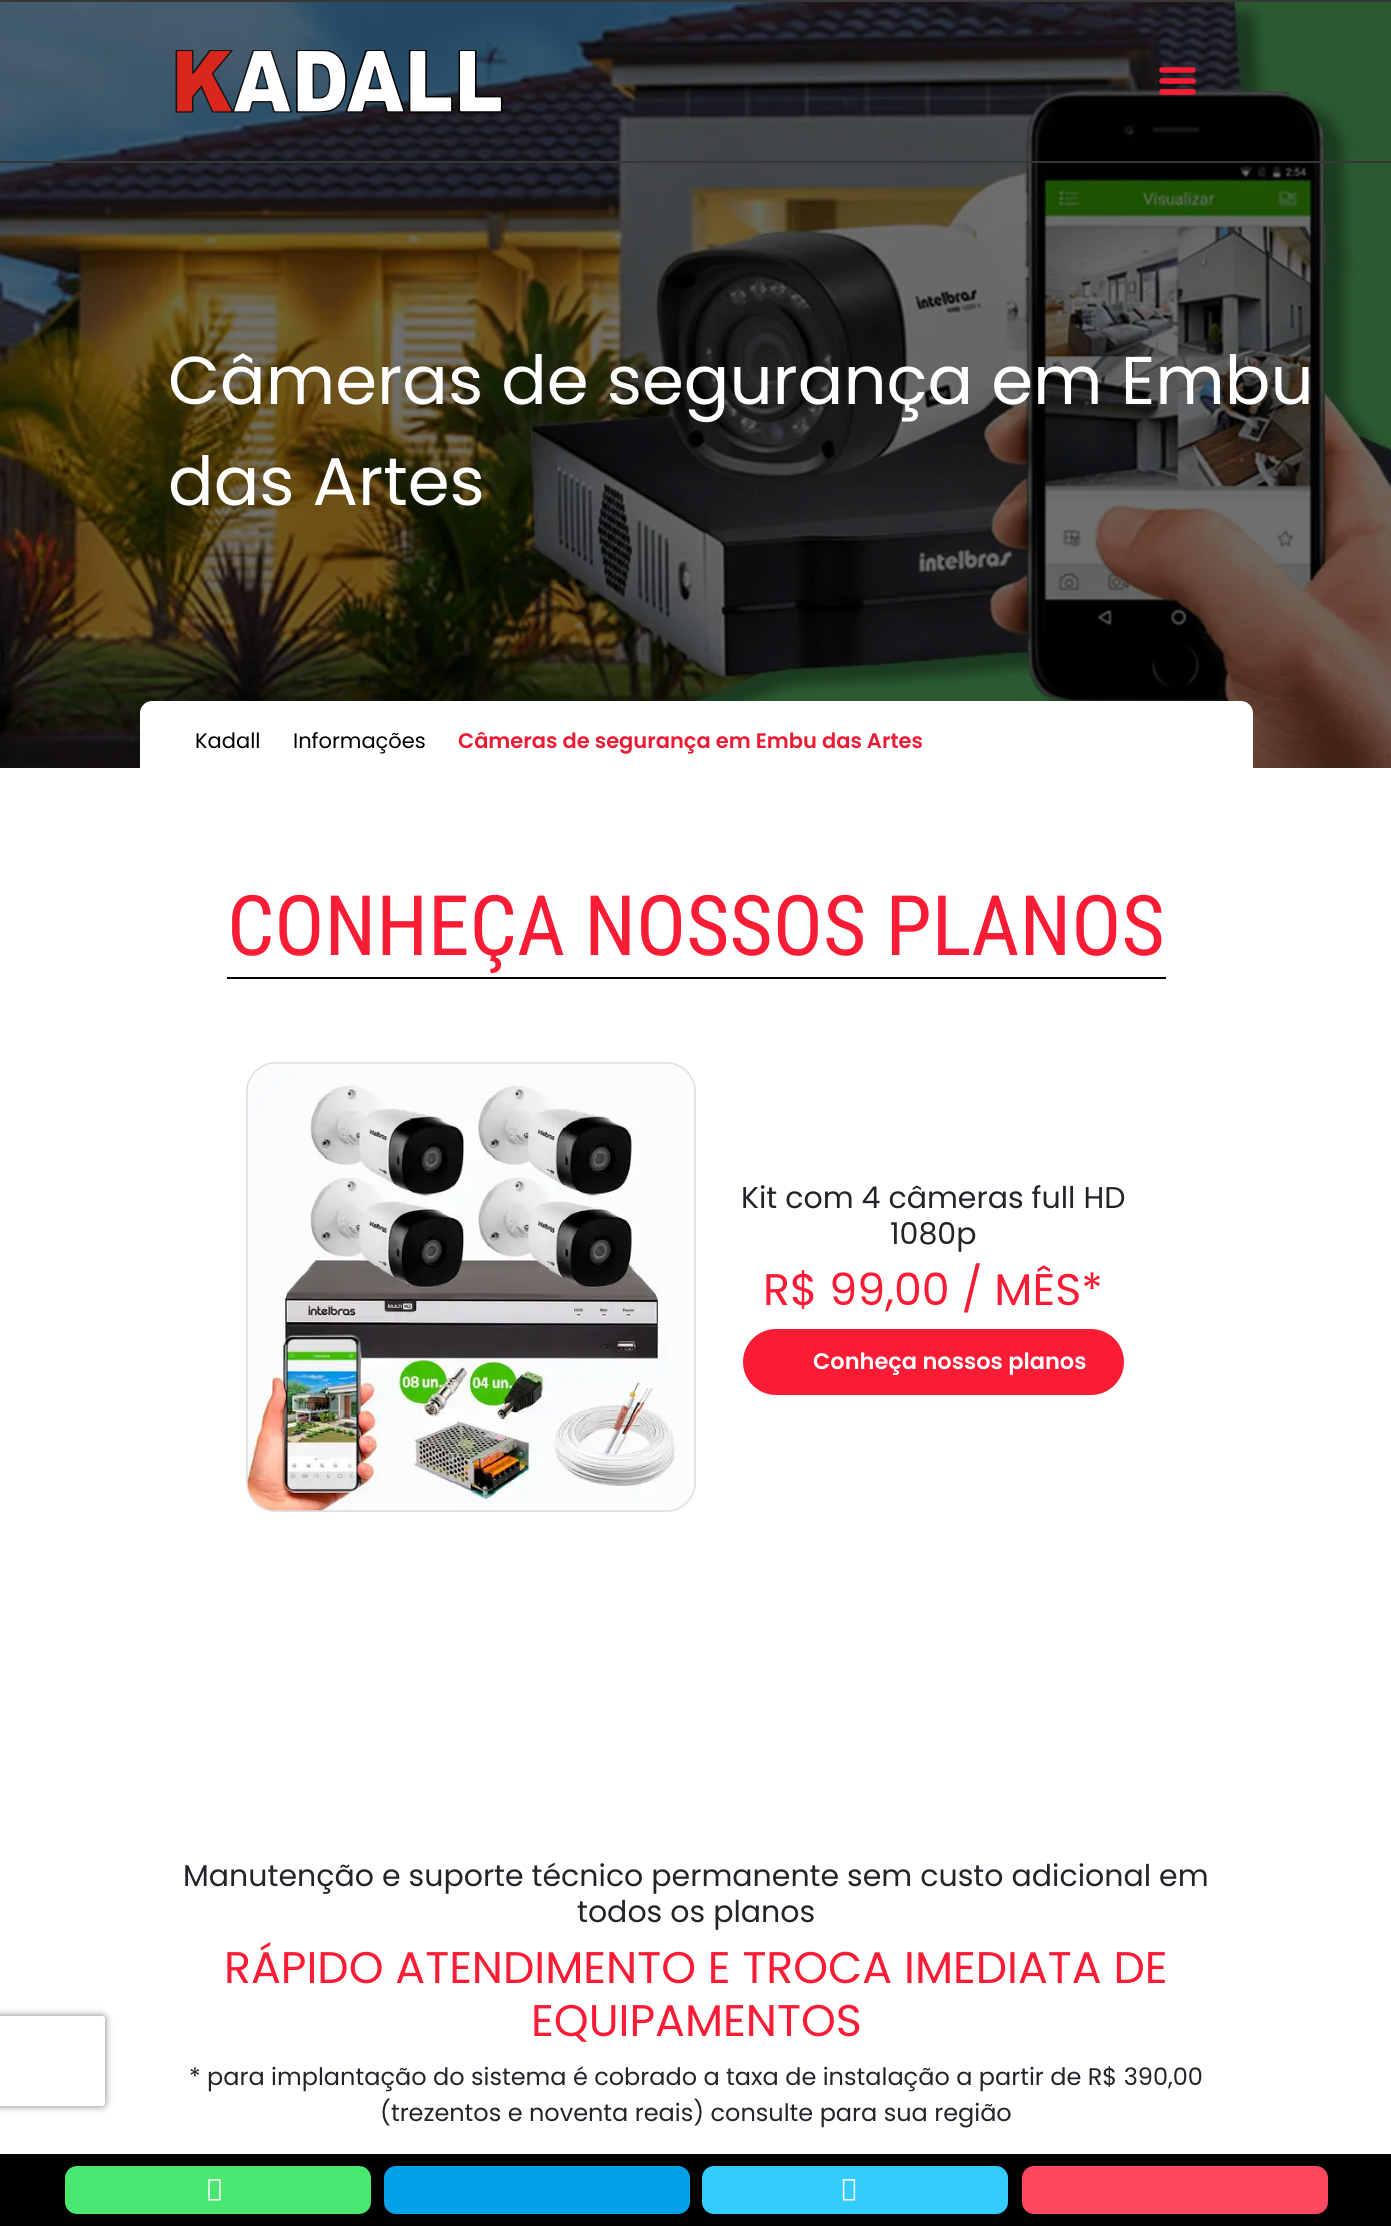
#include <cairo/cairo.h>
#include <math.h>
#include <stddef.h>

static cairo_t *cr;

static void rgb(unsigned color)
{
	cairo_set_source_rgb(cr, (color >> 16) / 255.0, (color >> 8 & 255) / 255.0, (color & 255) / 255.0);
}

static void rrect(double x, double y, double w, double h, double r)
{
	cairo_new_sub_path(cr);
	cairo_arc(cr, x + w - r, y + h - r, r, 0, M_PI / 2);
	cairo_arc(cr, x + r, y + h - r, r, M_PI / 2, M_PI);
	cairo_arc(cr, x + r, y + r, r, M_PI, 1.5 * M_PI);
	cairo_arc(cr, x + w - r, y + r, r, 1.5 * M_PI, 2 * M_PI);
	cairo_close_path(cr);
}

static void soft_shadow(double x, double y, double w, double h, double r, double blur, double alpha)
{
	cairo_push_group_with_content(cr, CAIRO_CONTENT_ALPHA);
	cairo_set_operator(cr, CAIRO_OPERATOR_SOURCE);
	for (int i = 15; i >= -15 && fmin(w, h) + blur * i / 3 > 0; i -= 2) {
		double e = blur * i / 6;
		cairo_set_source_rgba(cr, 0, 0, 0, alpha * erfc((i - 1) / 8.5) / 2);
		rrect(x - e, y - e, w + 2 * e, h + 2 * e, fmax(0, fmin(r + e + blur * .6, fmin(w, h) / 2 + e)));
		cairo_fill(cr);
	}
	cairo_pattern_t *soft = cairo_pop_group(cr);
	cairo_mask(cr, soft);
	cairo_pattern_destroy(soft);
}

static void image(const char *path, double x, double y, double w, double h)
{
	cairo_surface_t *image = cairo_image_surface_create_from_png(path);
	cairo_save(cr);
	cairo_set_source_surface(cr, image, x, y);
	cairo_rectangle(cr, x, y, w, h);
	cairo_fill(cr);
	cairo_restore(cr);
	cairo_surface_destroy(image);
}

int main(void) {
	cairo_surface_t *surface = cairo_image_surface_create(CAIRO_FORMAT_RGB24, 1391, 2226);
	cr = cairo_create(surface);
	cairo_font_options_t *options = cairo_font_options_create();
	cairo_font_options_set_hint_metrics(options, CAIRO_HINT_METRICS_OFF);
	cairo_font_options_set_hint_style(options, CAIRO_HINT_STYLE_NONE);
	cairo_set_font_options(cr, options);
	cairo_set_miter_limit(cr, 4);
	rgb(0xffffff);
	cairo_paint(cr);
	image("img/1.png", 0, 2, 1391, 766);
	rgb(0x373737);
	cairo_rectangle(cr, 0, 0, 1391, 2);
	cairo_fill(cr);
	cairo_rectangle(cr, 0, 161, 1391, 2);
	cairo_fill(cr);
	image("img/2.png", 175, 50, 328, 63);
	cairo_new_path(cr);
	cairo_move_to(cr, 1162, 70);
	cairo_line_to(cr, 1193, 70);
	cairo_move_to(cr, 1162, 81);
	cairo_line_to(cr, 1193, 81);
	cairo_move_to(cr, 1162, 92);
	cairo_line_to(cr, 1193, 92);
	rgb(0xfa1b35);
	cairo_set_line_width(cr, 5.6);
	cairo_set_line_cap(cr, CAIRO_LINE_CAP_ROUND);
	cairo_stroke(cr);
	rgb(0xffffff);
	cairo_new_path(cr);
	cairo_move_to(cr, 152, 701);
	cairo_line_to(cr, 1241, 701);
	cairo_curve_to(cr, 1247.5, 701, 1253, 706.5, 1253, 713);
	cairo_line_to(cr, 1253, 768);
	cairo_line_to(cr, 140, 768);
	cairo_line_to(cr, 140, 713);
	cairo_curve_to(cr, 140, 706.5, 145.5, 701, 152, 701);
	cairo_close_path(cr);
	cairo_fill(cr);
	rgb(0x000000);
	cairo_rectangle(cr, 227, 977, 939, 2);
	cairo_fill(cr);
	rrect(247, 1063, 448, 448, 29);
	rgb(0xdfdfdf);
	cairo_set_line_width(cr, 2);
	cairo_set_line_cap(cr, CAIRO_LINE_CAP_BUTT);
	cairo_stroke(cr);
	image("img/3.png", 247, 1063, 448, 448);
	rgb(0xfa1b35);
	rrect(744, 1330, 379, 64, 32);
	cairo_fill_preserve(cr);
	cairo_stroke(cr);
	cairo_save(cr);
	cairo_set_fill_rule(cr, CAIRO_FILL_RULE_EVEN_ODD);
	cairo_new_path(cr);
	cairo_move_to(cr, 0, 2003);
	cairo_line_to(cr, 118, 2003);
	cairo_line_to(cr, 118, 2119);
	cairo_line_to(cr, 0, 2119);
	cairo_close_path(cr);
	cairo_move_to(cr, -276, 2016);
	cairo_line_to(cr, 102, 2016);
	cairo_curve_to(cr, 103.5, 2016, 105, 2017.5, 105, 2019);
	cairo_line_to(cr, 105, 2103);
	cairo_curve_to(cr, 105, 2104.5, 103.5, 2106, 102, 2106);
	cairo_line_to(cr, -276, 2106);
	cairo_curve_to(cr, -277.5, 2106, -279, 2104.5, -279, 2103);
	cairo_line_to(cr, -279, 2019);
	cairo_curve_to(cr, -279, 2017.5, -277.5, 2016, -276, 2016);
	cairo_close_path(cr);
	cairo_clip(cr);
	rgb(0x808080);
	soft_shadow(-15, 2016, 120, 90, 3, 4, 1);
	cairo_restore(cr);
	rgb(0x000000);
	cairo_rectangle(cr, 0, 2154, 1391, 72);
	cairo_fill(cr);
	rgb(0x49e670);
	rrect(65, 2166, 306, 48, 12);
	cairo_fill(cr);
	image("img/4.png", 208, 2179, 13, 22);
	rgb(0x03a1e7);
	rrect(384, 2166, 306, 48, 12);
	cairo_fill(cr);
	rgb(0x33ccff);
	rrect(702, 2166, 306, 48, 12);
	cairo_fill(cr);
	image("img/5.png", 842, 2179, 14, 22);
	rgb(0xff485f);
	rrect(1022, 2166, 306, 48, 12);
	cairo_fill(cr);
	cairo_select_font_face(cr, "Poppins", CAIRO_FONT_SLANT_NORMAL, CAIRO_FONT_WEIGHT_NORMAL);
	cairo_set_font_size(cr, 67.5);
	rgb(0xffffff);
	cairo_move_to(cr, 168, 404);
	cairo_show_text(cr, "Câmeras de segurança em Embu");
	cairo_move_to(cr, 168, 505);
	cairo_show_text(cr, "das Artes");
	cairo_set_font_size(cr, 21);
	rgb(0x000000);
	cairo_move_to(cr, 195, 748);
	cairo_show_text(cr, "Kadall");
	cairo_move_to(cr, 293, 748);
	cairo_show_text(cr, "Informações");
	cairo_select_font_face(cr, "Poppins SemiBold", CAIRO_FONT_SLANT_NORMAL, CAIRO_FONT_WEIGHT_NORMAL);
	rgb(0xec1b34);
	cairo_move_to(cr, 458, 748);
	cairo_show_text(cr, "Câmeras de segurança em Embu das Artes");
	cairo_select_font_face(cr, "Roboto Condensed", CAIRO_FONT_SLANT_NORMAL, CAIRO_FONT_WEIGHT_NORMAL);
	cairo_set_font_size(cr, 83.5);
	rgb(0xfa1b35);
	cairo_move_to(cr, 227, 955);
	cairo_show_text(cr, "CONHEÇA NOSSOS PLANOS");
	cairo_select_font_face(cr, "Poppins", CAIRO_FONT_SLANT_NORMAL, CAIRO_FONT_WEIGHT_NORMAL);
	cairo_set_font_size(cr, 30);
	rgb(0x212529);
	cairo_move_to(cr, 741, 1208);
	cairo_show_text(cr, "Kit com 4 câmeras full HD");
	cairo_move_to(cr, 890, 1244);
	cairo_show_text(cr, "1080p");
	cairo_set_font_size(cr, 44.3);
	rgb(0xfa1b35);
	cairo_move_to(cr, 763, 1305);
	cairo_show_text(cr, "R$ 99,00 / MÊS*");
	cairo_select_font_face(cr, "Poppins SemiBold", CAIRO_FONT_SLANT_NORMAL, CAIRO_FONT_WEIGHT_NORMAL);
	cairo_set_font_size(cr, 22.5);
	rgb(0xffffff);
	cairo_move_to(cr, 813, 1369);
	cairo_show_text(cr, "Conheça nossos planos");
	cairo_select_font_face(cr, "Poppins", CAIRO_FONT_SLANT_NORMAL, CAIRO_FONT_WEIGHT_NORMAL);
	cairo_set_font_size(cr, 30);
	rgb(0x212529);
	cairo_move_to(cr, 183, 1886);
	cairo_show_text(cr, "Manutenção e suporte técnico permanente sem custo adicional em");
	cairo_move_to(cr, 577, 1922);
	cairo_show_text(cr, "todos os planos");
	cairo_set_font_size(cr, 44.3);
	rgb(0xfa1b35);
	cairo_move_to(cr, 224, 1983);
	cairo_show_text(cr, "RÁPIDO ATENDIMENTO E TROCA IMEDIATA DE");
	cairo_move_to(cr, 531, 2036);
	cairo_show_text(cr, "EQUIPAMENTOS");
	cairo_set_font_size(cr, 24);
	rgb(0x212529);
	cairo_move_to(cr, 189, 2085);
	cairo_show_text(cr, "* para implantação do sistema é cobrado a taxa de instalação a partir de R$ 390,00");
	cairo_move_to(cr, 380, 2121);
	cairo_show_text(cr, "(trezentos e noventa reais) consulte para sua região");
	cairo_surface_write_to_png(surface, "page.png");
	cairo_font_options_destroy(options);
	cairo_destroy(cr);
	cairo_surface_destroy(surface);
	return 0;
}
